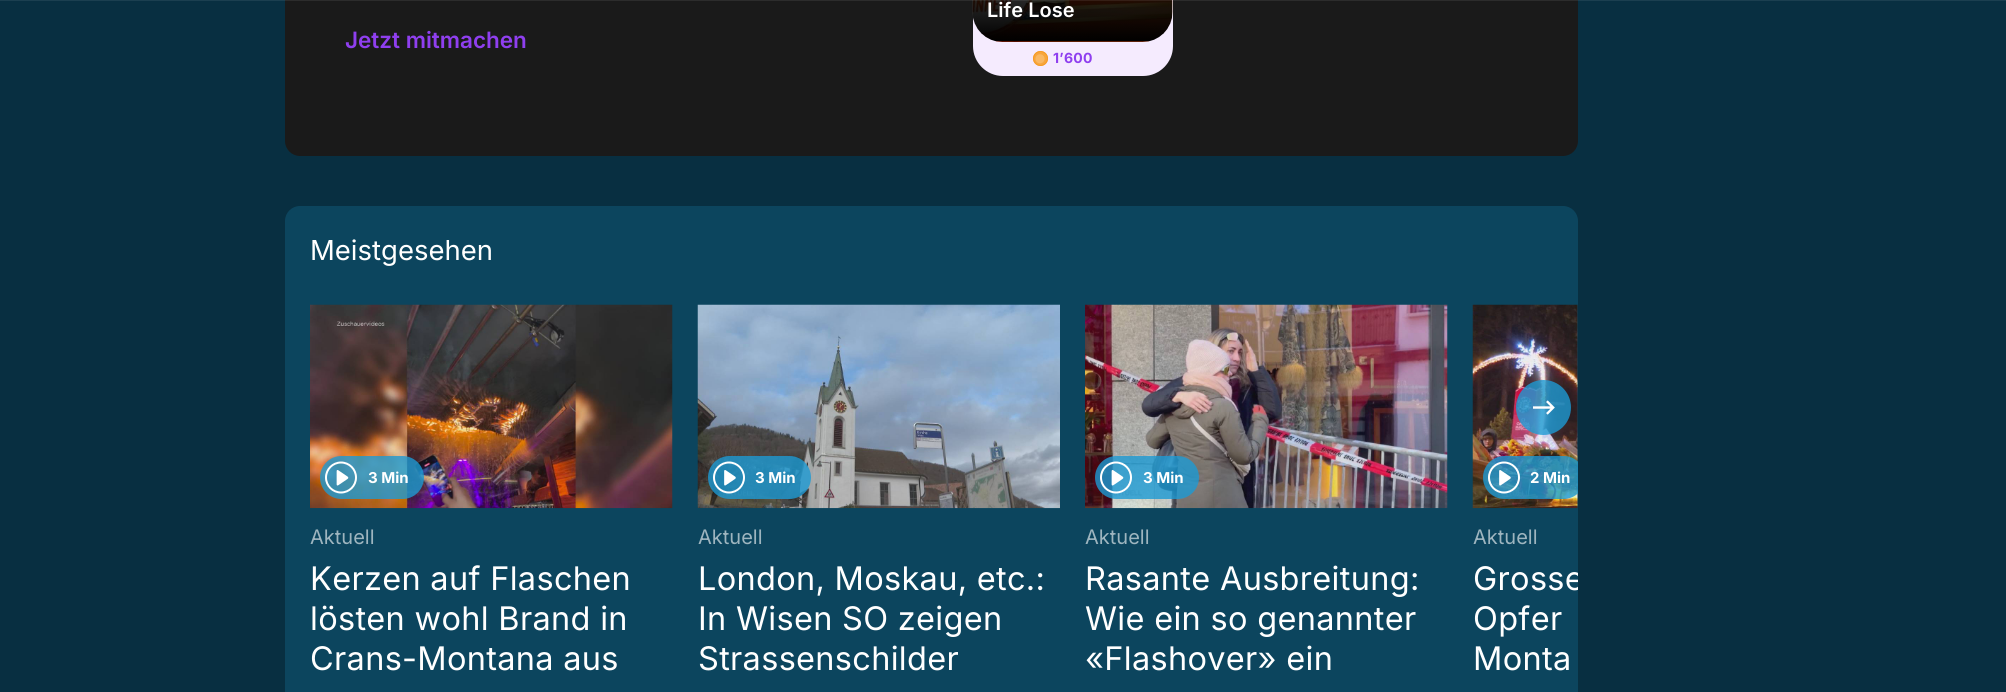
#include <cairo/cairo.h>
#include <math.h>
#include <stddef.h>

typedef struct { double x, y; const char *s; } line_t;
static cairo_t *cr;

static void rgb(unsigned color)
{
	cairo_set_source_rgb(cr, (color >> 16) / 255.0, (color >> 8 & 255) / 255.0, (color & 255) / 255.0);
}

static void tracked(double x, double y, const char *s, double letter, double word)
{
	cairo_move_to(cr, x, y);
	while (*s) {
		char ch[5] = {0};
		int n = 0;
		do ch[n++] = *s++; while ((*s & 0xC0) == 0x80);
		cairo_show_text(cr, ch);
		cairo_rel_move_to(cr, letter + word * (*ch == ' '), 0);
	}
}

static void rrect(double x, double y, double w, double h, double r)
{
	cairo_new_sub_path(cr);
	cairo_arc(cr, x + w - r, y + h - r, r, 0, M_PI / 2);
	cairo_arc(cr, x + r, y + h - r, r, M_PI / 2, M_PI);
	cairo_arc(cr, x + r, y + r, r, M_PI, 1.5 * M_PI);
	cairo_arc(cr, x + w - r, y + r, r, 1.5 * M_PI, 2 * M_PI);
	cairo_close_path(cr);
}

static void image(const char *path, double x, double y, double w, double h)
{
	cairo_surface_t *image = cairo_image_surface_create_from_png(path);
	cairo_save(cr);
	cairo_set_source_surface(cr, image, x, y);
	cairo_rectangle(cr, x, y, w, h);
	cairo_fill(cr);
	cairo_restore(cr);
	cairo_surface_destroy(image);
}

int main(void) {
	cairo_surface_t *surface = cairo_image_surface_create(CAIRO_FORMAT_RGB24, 2006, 692);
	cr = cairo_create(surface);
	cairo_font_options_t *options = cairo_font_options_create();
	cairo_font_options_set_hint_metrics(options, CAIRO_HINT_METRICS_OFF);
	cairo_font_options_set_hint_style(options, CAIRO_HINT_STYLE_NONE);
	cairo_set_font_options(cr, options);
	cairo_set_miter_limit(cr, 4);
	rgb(0x082f41);
	cairo_paint(cr);
	rgb(0x1a1a1a);
	rrect(285, -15, 1293, 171, 15);
	cairo_fill(cr);
	rgb(0xf5ebfe);
	rrect(973, -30, 200, 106, 30);
	cairo_fill(cr);
	image("img/1.png", 972, 0, 201, 42);
	cairo_set_source_rgba(cr, 1, 1, 1, 0.08);
	cairo_rectangle(cr, 0, 0, 2006, 1);
	cairo_fill(cr);
	rgb(0xf7a63d);
	cairo_arc(cr, 1040.5, 58.5, 7.5, 0, 2 * M_PI);
	cairo_fill(cr);
	cairo_new_path(cr);
	cairo_move_to(cr, 1040, 58.8);
	cairo_line_to(cr, 1040.2, 58.8);
	rgb(0xf9b864);
	cairo_set_line_width(cr, 9.1);
	cairo_set_line_cap(cr, CAIRO_LINE_CAP_ROUND);
	cairo_set_dash(cr, (double[]){0, 12.5}, 2, 0);
	cairo_stroke(cr);
	cairo_arc(cr, 1040.5, 58.5, 7, 0, 2 * M_PI);
	cairo_set_source_rgba(cr, 0.965, 0.604, 0.137, 0.9);
	cairo_set_line_width(cr, 1);
	cairo_set_line_cap(cr, CAIRO_LINE_CAP_BUTT);
	cairo_set_dash(cr, NULL, 0, 0);
	cairo_stroke(cr);
	rgb(0x0c455e);
	rrect(285, 206, 1293, 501, 15);
	cairo_fill(cr);
	image("img/9.png", 1472, 304, 106, 205);
	cairo_set_source_rgba(cr, 0.114, 0.604, 0.827, 0.8);
	cairo_arc(cr, 1543.5, 407.5, 27.5, 0, 2 * M_PI);
	cairo_fill(cr);
	image("img/2.png", 1533, 400, 22, 15);
	image("img/3.png", 310, 304, 363, 205);
	rrect(320, 456, 104, 43, 21.5);
	cairo_fill(cr);
	image("img/4.png", 325, 461, 32, 33);
	image("img/5.png", 697, 304, 363, 205);
	rrect(708, 456, 103, 43, 21.5);
	cairo_fill(cr);
	image("img/6.png", 713, 461, 32, 33);
	image("img/7.png", 1085, 304, 363, 205);
	rrect(1095, 456, 104, 43, 21.5);
	cairo_fill(cr);
	image("img/8.png", 1100, 461, 32, 33);
	cairo_save(cr);
	cairo_rectangle(cr, 285, 305, 1293, 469);
	cairo_clip(cr);
	rrect(1483, 456, 102, 43, 21.5);
	cairo_fill(cr);
	cairo_restore(cr);
	image("img/10.png", 1488, 461, 32, 33);
	cairo_select_font_face(cr, "Inter SemiBold", CAIRO_FONT_SLANT_NORMAL, CAIRO_FONT_WEIGHT_NORMAL);
	cairo_set_font_size(cr, 22.5);
	rgb(0x8f3fef);
	cairo_move_to(cr, 345, 48);
	cairo_show_text(cr, "Jetzt mitmachen");
	cairo_set_font_size(cr, 20);
	rgb(0xffffff);
	cairo_move_to(cr, 987, 17);
	cairo_show_text(cr, "Life Lose");
	cairo_select_font_face(cr, "Inter", CAIRO_FONT_SLANT_NORMAL, CAIRO_FONT_WEIGHT_BOLD);
	cairo_set_font_size(cr, 14);
	rgb(0x8f3fef);
	tracked(1053, 63, "1’600", 0.25, 0);
	cairo_select_font_face(cr, "Inter", CAIRO_FONT_SLANT_NORMAL, CAIRO_FONT_WEIGHT_NORMAL);
	cairo_set_font_size(cr, 27.5);
	rgb(0xffffff);
	cairo_move_to(cr, 310, 260);
	cairo_show_text(cr, "Meistgesehen");
	cairo_select_font_face(cr, "Inter", CAIRO_FONT_SLANT_NORMAL, CAIRO_FONT_WEIGHT_BOLD);
	cairo_set_font_size(cr, 15);
	cairo_move_to(cr, 368, 483);
	cairo_show_text(cr, "3 Min");
	cairo_select_font_face(cr, "Inter", CAIRO_FONT_SLANT_NORMAL, CAIRO_FONT_WEIGHT_NORMAL);
	cairo_set_font_size(cr, 20);
	rgb(0x9eb5bf);
	cairo_move_to(cr, 310, 544);
	cairo_show_text(cr, "Aktuell");
	cairo_set_font_size(cr, 32.5);
	rgb(0xffffff);
	{
		static const line_t items[] = {
			{310, 590, "Kerzen auf Flaschen"},
			{310, 630, "lösten wohl Brand in"},
			{310, 670, "Crans-Montana aus"},
		};
		for (size_t i = 0; i < sizeof items / sizeof *items; i++) {
			tracked(items[i].x, items[i].y, items[i].s, 0.3, 0);
		}
	}
	cairo_select_font_face(cr, "Inter", CAIRO_FONT_SLANT_NORMAL, CAIRO_FONT_WEIGHT_BOLD);
	cairo_set_font_size(cr, 15);
	cairo_move_to(cr, 755, 483);
	cairo_show_text(cr, "3 Min");
	cairo_select_font_face(cr, "Inter", CAIRO_FONT_SLANT_NORMAL, CAIRO_FONT_WEIGHT_NORMAL);
	cairo_set_font_size(cr, 20);
	rgb(0x9eb5bf);
	cairo_move_to(cr, 698, 544);
	cairo_show_text(cr, "Aktuell");
	cairo_set_font_size(cr, 32.5);
	rgb(0xffffff);
	{
		static const line_t items[] = {
			{698, 590, "London, Moskau, etc.:"},
			{698, 630, "In Wisen SO zeigen"},
			{698, 670, "Strassenschilder"},
		};
		for (size_t i = 0; i < sizeof items / sizeof *items; i++) {
			tracked(items[i].x, items[i].y, items[i].s, 0.3, 0);
		}
	}
	cairo_select_font_face(cr, "Inter", CAIRO_FONT_SLANT_NORMAL, CAIRO_FONT_WEIGHT_BOLD);
	cairo_set_font_size(cr, 15);
	cairo_move_to(cr, 1143, 483);
	cairo_show_text(cr, "3 Min");
	cairo_select_font_face(cr, "Inter", CAIRO_FONT_SLANT_NORMAL, CAIRO_FONT_WEIGHT_NORMAL);
	cairo_set_font_size(cr, 20);
	rgb(0x9eb5bf);
	cairo_move_to(cr, 1085, 544);
	cairo_show_text(cr, "Aktuell");
	cairo_set_font_size(cr, 32.5);
	rgb(0xffffff);
	{
		static const line_t items[] = {
			{1085, 590, "Rasante Ausbreitung:"},
			{1085, 630, "Wie ein so genannter"},
			{1085, 670, "«Flashover» ein"},
		};
		for (size_t i = 0; i < sizeof items / sizeof *items; i++) {
			tracked(items[i].x, items[i].y, items[i].s, 0.3, 0);
		}
	}
	cairo_select_font_face(cr, "Inter", CAIRO_FONT_SLANT_NORMAL, CAIRO_FONT_WEIGHT_BOLD);
	cairo_set_font_size(cr, 15);
	cairo_move_to(cr, 1530, 483);
	cairo_show_text(cr, "2 Min");
	cairo_select_font_face(cr, "Inter", CAIRO_FONT_SLANT_NORMAL, CAIRO_FONT_WEIGHT_NORMAL);
	cairo_set_font_size(cr, 20);
	rgb(0x9eb5bf);
	cairo_move_to(cr, 1473, 544);
	cairo_show_text(cr, "Aktuell");
	cairo_save(cr);
	cairo_rectangle(cr, 1473, 509, 105, 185);
	cairo_clip(cr);
	cairo_set_font_size(cr, 32.5);
	rgb(0xffffff);
	tracked(1473, 590, "Grosse", 0.3, 0);
	cairo_restore(cr);
	cairo_set_font_size(cr, 32.5);
	rgb(0xffffff);
	tracked(1473, 630, "Opfer", 0.3, 0);
	tracked(1473, 670, "Monta", 0.3, 0);
	cairo_surface_write_to_png(surface, "page.png");
	cairo_font_options_destroy(options);
	cairo_destroy(cr);
	cairo_surface_destroy(surface);
	return 0;
}
